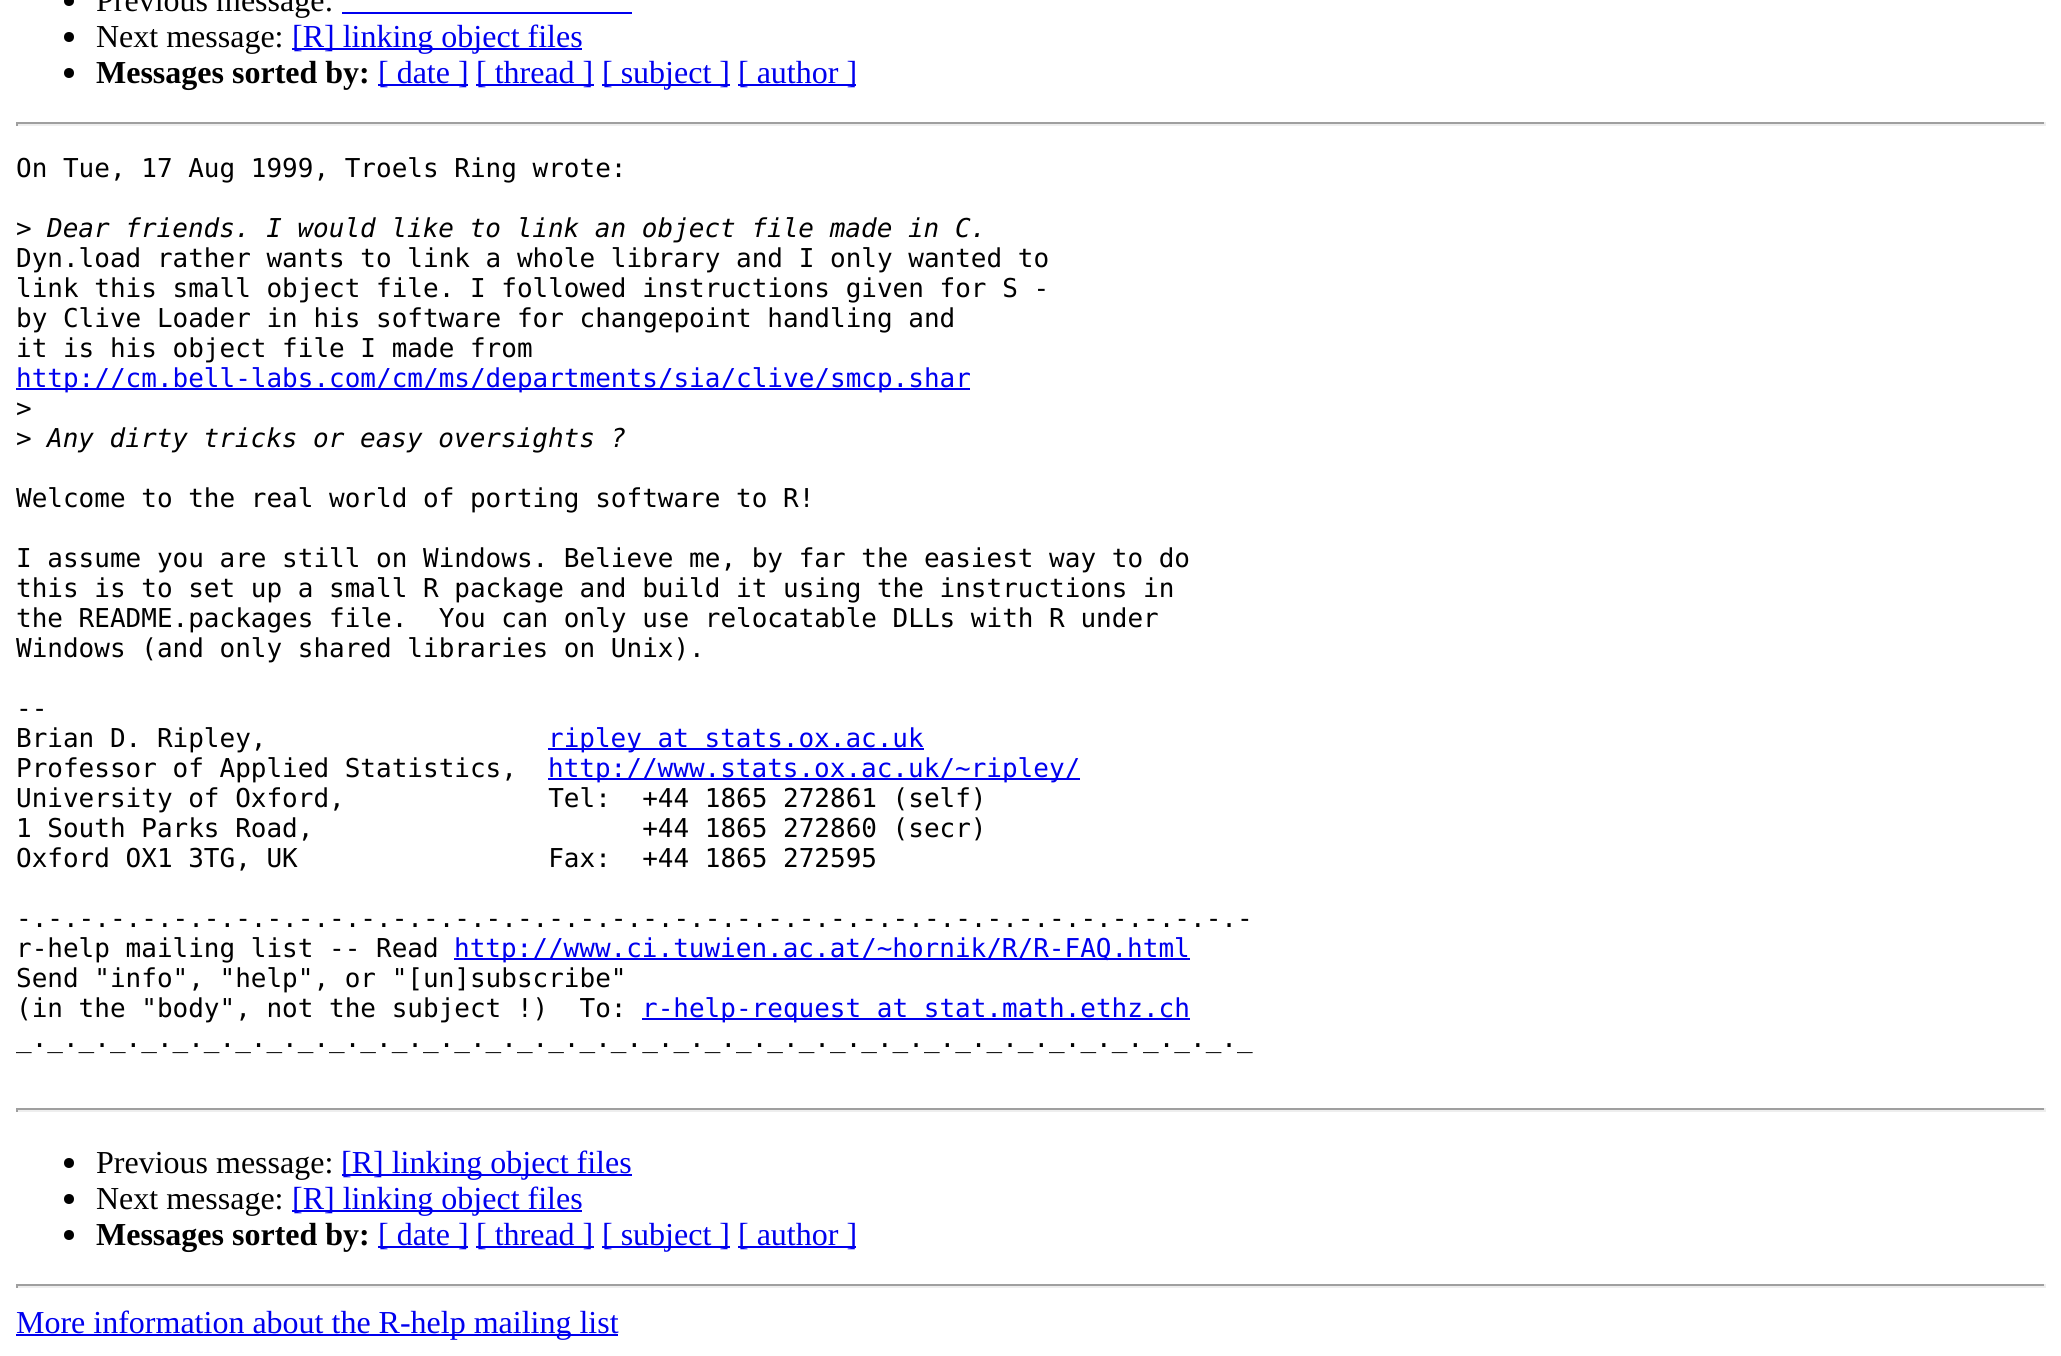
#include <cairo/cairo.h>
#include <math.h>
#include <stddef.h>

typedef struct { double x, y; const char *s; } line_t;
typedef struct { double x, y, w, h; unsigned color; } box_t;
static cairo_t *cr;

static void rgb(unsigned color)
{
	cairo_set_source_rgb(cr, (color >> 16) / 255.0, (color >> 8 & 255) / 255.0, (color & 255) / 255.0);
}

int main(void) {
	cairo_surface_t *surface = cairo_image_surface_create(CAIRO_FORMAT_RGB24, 2061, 1356);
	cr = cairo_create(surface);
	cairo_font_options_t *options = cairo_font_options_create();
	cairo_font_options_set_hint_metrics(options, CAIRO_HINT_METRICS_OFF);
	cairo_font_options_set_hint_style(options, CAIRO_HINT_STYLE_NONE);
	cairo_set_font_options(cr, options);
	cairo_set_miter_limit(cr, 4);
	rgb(0xffffff);
	cairo_paint(cr);
	rgb(0x000000);
	cairo_arc(cr, 69, 1, 5, 0, 2 * M_PI);
	cairo_fill(cr);
	rgb(0x0000ee);
	cairo_rectangle(cr, 342, 12, 290, 2);
	cairo_fill(cr);
	rgb(0x000000);
	cairo_arc(cr, 69, 37, 5, 0, 2 * M_PI);
	cairo_fill(cr);
	rgb(0x0000ee);
	cairo_rectangle(cr, 292, 48, 290, 2);
	cairo_fill(cr);
	rgb(0x000000);
	cairo_arc(cr, 69, 73, 5, 0, 2 * M_PI);
	cairo_fill(cr);
	{
		static const box_t items[] = {
			{378, 84, 90, 2, 0x0000ee},
			{476, 84, 118, 2, 0x0000ee},
			{602, 84, 128, 2, 0x0000ee},
			{738, 84, 118, 2, 0x0000ee},
			{16, 122, 2030, 2, 0x9f9f9f},
			{2044, 122, 2, 4, 0xeeeeee},
			{16, 124, 2030, 2, 0xeeeeee},
			{16, 122, 2, 4, 0x9f9f9f},
			{16, 388, 954, 2, 0x0000ee},
			{548, 748, 376, 2, 0x0000ee},
			{548, 778, 532, 2, 0x0000ee},
			{454, 958, 736, 2, 0x0000ee},
			{642, 1018, 548, 2, 0x0000ee},
			{16, 1108, 2030, 2, 0x9f9f9f},
			{2044, 1108, 2, 4, 0xeeeeee},
			{16, 1110, 2030, 2, 0xeeeeee},
			{16, 1108, 2, 4, 0x9f9f9f},
		};
		for (size_t i = 0; i < sizeof items / sizeof *items; i++) {
			rgb(items[i].color);
			cairo_rectangle(cr, items[i].x, items[i].y, items[i].w, items[i].h);
			cairo_fill(cr);
		}
	}
	rgb(0x000000);
	cairo_arc(cr, 69, 1163, 5, 0, 2 * M_PI);
	cairo_fill(cr);
	rgb(0x0000ee);
	cairo_rectangle(cr, 342, 1174, 290, 2);
	cairo_fill(cr);
	rgb(0x000000);
	cairo_arc(cr, 69, 1199, 5, 0, 2 * M_PI);
	cairo_fill(cr);
	rgb(0x0000ee);
	cairo_rectangle(cr, 292, 1210, 290, 2);
	cairo_fill(cr);
	rgb(0x000000);
	cairo_arc(cr, 69, 1235, 5, 0, 2 * M_PI);
	cairo_fill(cr);
	{
		static const box_t items[] = {
			{378, 1246, 90, 2, 0x0000ee},
			{476, 1246, 118, 2, 0x0000ee},
			{602, 1246, 128, 2, 0x0000ee},
			{738, 1246, 118, 2, 0x0000ee},
			{16, 1284, 2030, 2, 0x9f9f9f},
			{2044, 1284, 2, 4, 0xeeeeee},
			{16, 1286, 2030, 2, 0xeeeeee},
			{16, 1284, 2, 4, 0x9f9f9f},
			{16, 1334, 602, 2, 0x0000ee},
		};
		for (size_t i = 0; i < sizeof items / sizeof *items; i++) {
			rgb(items[i].color);
			cairo_rectangle(cr, items[i].x, items[i].y, items[i].w, items[i].h);
			cairo_fill(cr);
		}
	}
	cairo_select_font_face(cr, "Liberation Serif", CAIRO_FONT_SLANT_NORMAL, CAIRO_FONT_WEIGHT_NORMAL);
	cairo_set_font_size(cr, 32);
	rgb(0x000000);
	cairo_move_to(cr, 96, 11);
	cairo_show_text(cr, "Previous message:");
	cairo_move_to(cr, 96, 47);
	cairo_show_text(cr, "Next message:");
	rgb(0x0000ee);
	cairo_move_to(cr, 292, 47);
	cairo_show_text(cr, "[R] linking object files");
	cairo_select_font_face(cr, "Liberation Serif", CAIRO_FONT_SLANT_NORMAL, CAIRO_FONT_WEIGHT_BOLD);
	rgb(0x000000);
	cairo_move_to(cr, 96, 83);
	cairo_show_text(cr, "Messages sorted by:");
	cairo_select_font_face(cr, "Liberation Serif", CAIRO_FONT_SLANT_NORMAL, CAIRO_FONT_WEIGHT_NORMAL);
	rgb(0x0000ee);
	{
		static const line_t items[] = {
			{378, 83, "[ date ]"},
			{476, 83, "[ thread ]"},
			{602, 83, "[ subject ]"},
			{738, 83, "[ author ]"},
		};
		for (size_t i = 0; i < sizeof items / sizeof *items; i++) {
			cairo_move_to(cr, items[i].x, items[i].y);
			cairo_show_text(cr, items[i].s);
		}
	}
	cairo_select_font_face(cr, "DejaVu Sans Mono", CAIRO_FONT_SLANT_NORMAL, CAIRO_FONT_WEIGHT_NORMAL);
	cairo_set_font_size(cr, 26);
	rgb(0x000000);
	cairo_move_to(cr, 16, 177);
	cairo_show_text(cr, "On Tue, 17 Aug 1999, Troels Ring wrote:");
	cairo_move_to(cr, 16, 237);
	cairo_show_text(cr, ">");
	cairo_select_font_face(cr, "DejaVu Sans Mono", CAIRO_FONT_SLANT_ITALIC, CAIRO_FONT_WEIGHT_NORMAL);
	cairo_move_to(cr, 47, 237);
	cairo_show_text(cr, "Dear friends. I would like to link an object file made in C.");
	cairo_select_font_face(cr, "DejaVu Sans Mono", CAIRO_FONT_SLANT_NORMAL, CAIRO_FONT_WEIGHT_NORMAL);
	{
		static const line_t items[] = {
			{16, 267, "Dyn.load rather wants to link a whole library and I only wanted to"},
			{16, 297, "link this small object file. I followed instructions given for S -"},
			{16, 327, "by Clive Loader in his software for changepoint handling and"},
			{16, 357, "it is his object file I made from"},
		};
		for (size_t i = 0; i < sizeof items / sizeof *items; i++) {
			cairo_move_to(cr, items[i].x, items[i].y);
			cairo_show_text(cr, items[i].s);
		}
	}
	rgb(0x0000ee);
	cairo_move_to(cr, 16, 387);
	cairo_show_text(cr, "http://cm.bell-labs.com/cm/ms/departments/sia/clive/smcp.shar");
	rgb(0x000000);
	cairo_move_to(cr, 16, 417);
	cairo_show_text(cr, ">");
	cairo_move_to(cr, 16, 447);
	cairo_show_text(cr, ">");
	cairo_select_font_face(cr, "DejaVu Sans Mono", CAIRO_FONT_SLANT_ITALIC, CAIRO_FONT_WEIGHT_NORMAL);
	cairo_move_to(cr, 47, 447);
	cairo_show_text(cr, "Any dirty tricks or easy oversights ?");
	cairo_select_font_face(cr, "DejaVu Sans Mono", CAIRO_FONT_SLANT_NORMAL, CAIRO_FONT_WEIGHT_NORMAL);
	{
		static const line_t items[] = {
			{16, 507, "Welcome to the real world of porting software to R!"},
			{16, 567, "I assume you are still on Windows. Believe me, by far the easiest way to do"},
			{16, 597, "this is to set up a small R package and build it using the instructions in"},
			{16, 627, "the README.packages file.  You can only use relocatable DLLs with R under"},
			{16, 657, "Windows (and only shared libraries on Unix)."},
			{16, 717, "--"},
			{16, 747, "Brian D. Ripley,"},
		};
		for (size_t i = 0; i < sizeof items / sizeof *items; i++) {
			cairo_move_to(cr, items[i].x, items[i].y);
			cairo_show_text(cr, items[i].s);
		}
	}
	rgb(0x0000ee);
	cairo_move_to(cr, 548, 747);
	cairo_show_text(cr, "ripley at stats.ox.ac.uk");
	rgb(0x000000);
	cairo_move_to(cr, 16, 777);
	cairo_show_text(cr, "Professor of Applied Statistics,");
	rgb(0x0000ee);
	cairo_move_to(cr, 548, 777);
	cairo_show_text(cr, "http://www.stats.ox.ac.uk/~ripley/");
	rgb(0x000000);
	{
		static const line_t items[] = {
			{16, 807, "University of Oxford,             Tel:  +44 1865 272861 (self)"},
			{16, 837, "1 South Parks Road,                     +44 1865 272860 (secr)"},
			{16, 867, "Oxford OX1 3TG, UK                Fax:  +44 1865 272595"},
			{16, 927, "-.-.-.-.-.-.-.-.-.-.-.-.-.-.-.-.-.-.-.-.-.-.-.-.-.-.-.-.-.-.-.-.-.-.-.-.-.-.-.-"},
			{16, 957, "r-help mailing list -- Read"},
		};
		for (size_t i = 0; i < sizeof items / sizeof *items; i++) {
			cairo_move_to(cr, items[i].x, items[i].y);
			cairo_show_text(cr, items[i].s);
		}
	}
	rgb(0x0000ee);
	cairo_move_to(cr, 454, 957);
	cairo_show_text(cr, "http://www.ci.tuwien.ac.at/~hornik/R/R-FAQ.html");
	rgb(0x000000);
	cairo_move_to(cr, 16, 987);
	cairo_show_text(cr, "Send \"info\", \"help\", or \"[un]subscribe\"");
	cairo_move_to(cr, 16, 1017);
	cairo_show_text(cr, "(in the \"body\", not the subject !)  To:");
	rgb(0x0000ee);
	cairo_move_to(cr, 642, 1017);
	cairo_show_text(cr, "r-help-request at stat.math.ethz.ch");
	rgb(0x000000);
	cairo_move_to(cr, 16, 1047);
	cairo_show_text(cr, "_._._._._._._._._._._._._._._._._._._._._._._._._._._._._._._._._._._._._._._._");
	cairo_select_font_face(cr, "Liberation Serif", CAIRO_FONT_SLANT_NORMAL, CAIRO_FONT_WEIGHT_NORMAL);
	cairo_set_font_size(cr, 32);
	cairo_move_to(cr, 96, 1173);
	cairo_show_text(cr, "Previous message:");
	rgb(0x0000ee);
	cairo_move_to(cr, 341, 1173);
	cairo_show_text(cr, "[R] linking object files");
	rgb(0x000000);
	cairo_move_to(cr, 96, 1209);
	cairo_show_text(cr, "Next message:");
	rgb(0x0000ee);
	cairo_move_to(cr, 292, 1209);
	cairo_show_text(cr, "[R] linking object files");
	cairo_select_font_face(cr, "Liberation Serif", CAIRO_FONT_SLANT_NORMAL, CAIRO_FONT_WEIGHT_BOLD);
	rgb(0x000000);
	cairo_move_to(cr, 96, 1245);
	cairo_show_text(cr, "Messages sorted by:");
	cairo_select_font_face(cr, "Liberation Serif", CAIRO_FONT_SLANT_NORMAL, CAIRO_FONT_WEIGHT_NORMAL);
	rgb(0x0000ee);
	{
		static const line_t items[] = {
			{378, 1245, "[ date ]"},
			{476, 1245, "[ thread ]"},
			{602, 1245, "[ subject ]"},
			{738, 1245, "[ author ]"},
			{16, 1333, "More information about the R-help mailing list"},
		};
		for (size_t i = 0; i < sizeof items / sizeof *items; i++) {
			cairo_move_to(cr, items[i].x, items[i].y);
			cairo_show_text(cr, items[i].s);
		}
	}
	cairo_surface_write_to_png(surface, "page.png");
	cairo_font_options_destroy(options);
	cairo_destroy(cr);
	cairo_surface_destroy(surface);
	return 0;
}
